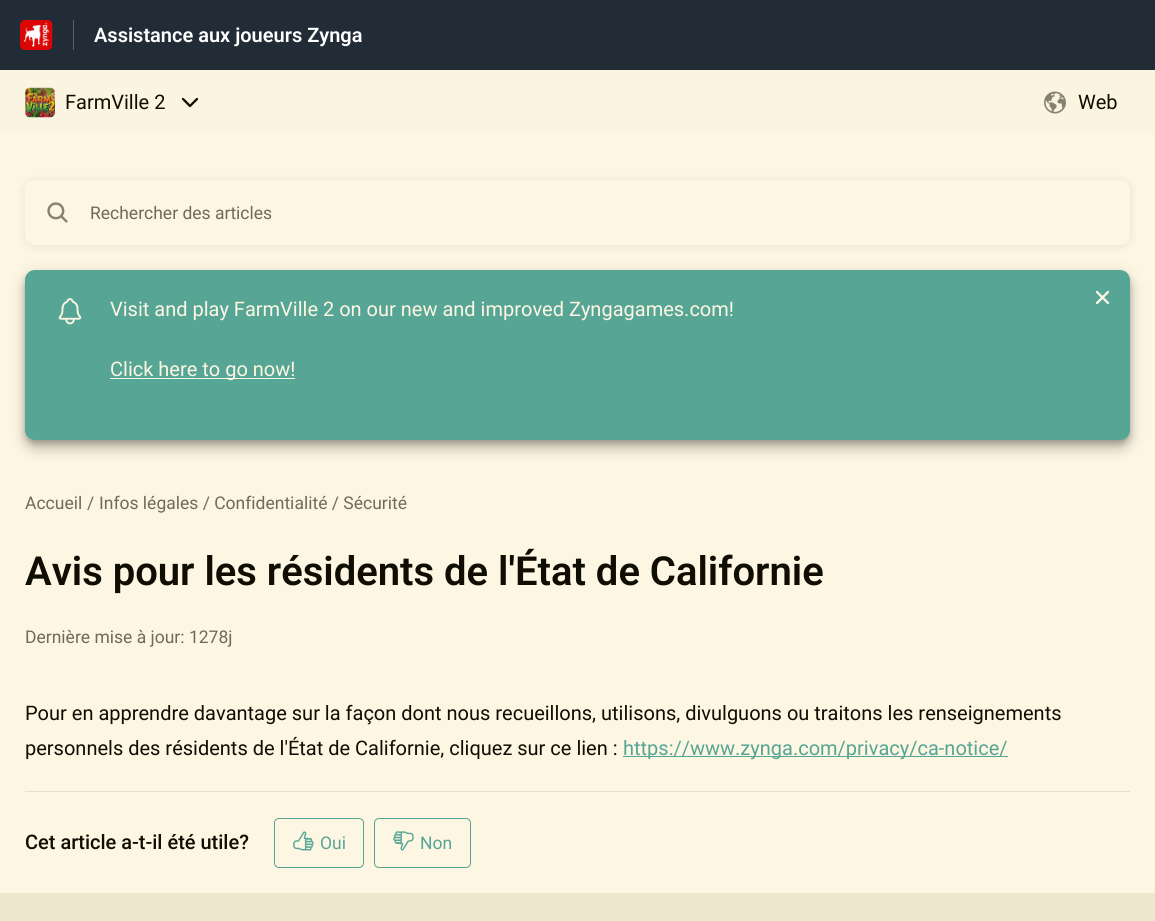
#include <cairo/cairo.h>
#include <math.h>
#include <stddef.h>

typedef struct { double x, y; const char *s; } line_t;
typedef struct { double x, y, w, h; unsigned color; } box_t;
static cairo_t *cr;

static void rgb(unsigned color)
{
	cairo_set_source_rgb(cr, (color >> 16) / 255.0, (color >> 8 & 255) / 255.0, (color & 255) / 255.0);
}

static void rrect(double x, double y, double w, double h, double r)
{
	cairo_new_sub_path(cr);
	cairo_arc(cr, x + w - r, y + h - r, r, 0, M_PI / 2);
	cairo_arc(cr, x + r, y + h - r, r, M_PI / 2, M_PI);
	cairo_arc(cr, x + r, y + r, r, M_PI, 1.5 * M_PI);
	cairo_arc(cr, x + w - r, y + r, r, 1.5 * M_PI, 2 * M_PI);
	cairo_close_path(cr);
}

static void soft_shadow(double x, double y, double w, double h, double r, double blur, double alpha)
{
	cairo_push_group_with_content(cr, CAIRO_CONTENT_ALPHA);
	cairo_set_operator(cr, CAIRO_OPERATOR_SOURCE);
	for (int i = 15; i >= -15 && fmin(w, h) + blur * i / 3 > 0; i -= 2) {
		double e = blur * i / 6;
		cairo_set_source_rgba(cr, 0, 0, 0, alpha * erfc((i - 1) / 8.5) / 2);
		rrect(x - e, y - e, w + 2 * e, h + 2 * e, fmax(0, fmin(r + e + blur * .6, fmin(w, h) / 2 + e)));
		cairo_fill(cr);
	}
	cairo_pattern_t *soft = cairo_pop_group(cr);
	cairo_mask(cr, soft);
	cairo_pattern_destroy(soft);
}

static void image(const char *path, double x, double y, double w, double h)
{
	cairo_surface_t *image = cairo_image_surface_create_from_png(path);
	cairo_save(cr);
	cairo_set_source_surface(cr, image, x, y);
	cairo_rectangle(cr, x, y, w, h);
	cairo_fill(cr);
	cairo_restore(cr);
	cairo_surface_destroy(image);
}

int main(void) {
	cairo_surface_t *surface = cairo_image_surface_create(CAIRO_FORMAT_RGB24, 1155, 921);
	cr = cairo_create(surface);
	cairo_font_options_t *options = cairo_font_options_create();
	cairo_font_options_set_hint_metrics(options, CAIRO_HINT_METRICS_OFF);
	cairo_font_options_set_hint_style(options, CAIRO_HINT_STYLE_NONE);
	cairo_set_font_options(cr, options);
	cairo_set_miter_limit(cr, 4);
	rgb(0xfbf4e0);
	cairo_paint(cr);
	rgb(0x222c37);
	cairo_rectangle(cr, 0, 0, 1155, 70);
	cairo_fill(cr);
	rgb(0x596169);
	cairo_rectangle(cr, 73, 20, 1, 30);
	cairo_fill(cr);
	image("img/1.png", 20, 20, 33, 30);
	image("img/2.png", 25, 87, 30, 31);
	cairo_new_path(cr);
	cairo_move_to(cr, 183, 99);
	cairo_line_to(cr, 190, 106);
	cairo_line_to(cr, 197, 99);
	rgb(0x100d02);
	cairo_set_line_width(cr, 2.3);
	cairo_set_line_cap(cr, CAIRO_LINE_CAP_ROUND);
	cairo_set_line_join(cr, CAIRO_LINE_JOIN_ROUND);
	cairo_stroke(cr);
	image("img/3.png", 1044, 91, 22, 23);
	rgb(0xfdf6e3);
	cairo_rectangle(cr, 0, 130, 1155, 335);
	cairo_fill(cr);
	rgb(0x000000);
	soft_shadow(25, 181, 1105, 65, 10, 5, 0.08);
	rgb(0xfdf6e3);
	rrect(25, 180, 1105, 65, 10);
	cairo_fill(cr);
	image("img/4.png", 47, 202, 21, 21);
	rgb(0x000000);
	soft_shadow(25, 280, 1105, 170, 10, 6, 0.14);
	soft_shadow(25, 274, 1105, 170, 10, 9, 0.12);
	soft_shadow(25, 274, 1105, 170, 10, 3, 0.2);
	rgb(0x57a595);
	rrect(25, 270, 1105, 170, 10);
	cairo_fill(cr);
	image("img/5.png", 58, 298, 24, 27);
	rgb(0xfdf6e3);
	cairo_rectangle(cr, 110, 378, 185, 1);
	cairo_fill(cr);
	image("img/6.png", 1095, 290, 15, 15);
	{
		static const box_t items[] = {
			{0, 465, 1155, 428, 0xfdf6e3},
			{25, 791, 1105, 1, 0xe5dfcc},
			{623, 756, 385, 1, 0x57a595},
		};
		for (size_t i = 0; i < sizeof items / sizeof *items; i++) {
			rgb(items[i].color);
			cairo_rectangle(cr, items[i].x, items[i].y, items[i].w, items[i].h);
			cairo_fill(cr);
		}
	}
	rrect(274.5, 818.5, 89, 49, 4.5);
	cairo_set_line_width(cr, 1);
	cairo_set_line_cap(cr, CAIRO_LINE_CAP_BUTT);
	cairo_set_line_join(cr, CAIRO_LINE_JOIN_MITER);
	cairo_stroke(cr);
	image("img/7.png", 293, 831, 21, 20);
	rrect(374.5, 818.5, 96, 49, 4.5);
	cairo_stroke(cr);
	image("img/8.png", 393, 831, 21, 20);
	rgb(0xede7cd);
	cairo_rectangle(cr, 0, 893, 1155, 28);
	cairo_fill(cr);
	cairo_select_font_face(cr, "Roboto SemiBold", CAIRO_FONT_SLANT_NORMAL, CAIRO_FONT_WEIGHT_NORMAL);
	cairo_set_font_size(cr, 20);
	rgb(0xffffff);
	cairo_move_to(cr, 94, 42);
	cairo_show_text(cr, "Assistance aux joueurs Zynga");
	cairo_select_font_face(cr, "Roboto", CAIRO_FONT_SLANT_NORMAL, CAIRO_FONT_WEIGHT_NORMAL);
	rgb(0x100d02);
	cairo_move_to(cr, 65, 109);
	cairo_show_text(cr, "FarmVille 2");
	cairo_move_to(cr, 1078, 109);
	cairo_show_text(cr, "Web");
	cairo_set_font_size(cr, 17.5);
	rgb(0x6f6a5c);
	cairo_move_to(cr, 90, 219);
	cairo_show_text(cr, "Rechercher des articles");
	cairo_set_font_size(cr, 20);
	rgb(0xfdf6e3);
	cairo_move_to(cr, 110, 316);
	cairo_show_text(cr, "Visit and play FarmVille 2 on our new and improved Zyngagames.com!");
	cairo_move_to(cr, 110, 376);
	cairo_show_text(cr, "Click here to go now!");
	cairo_set_font_size(cr, 17.5);
	rgb(0x6f6a5c);
	{
		static const line_t items[] = {
			{25, 509, "Accueil"},
			{87, 509, "/"},
			{99, 509, "Infos légales / Confidentialité / Sécurité"},
		};
		for (size_t i = 0; i < sizeof items / sizeof *items; i++) {
			cairo_move_to(cr, items[i].x, items[i].y);
			cairo_show_text(cr, items[i].s);
		}
	}
	cairo_select_font_face(cr, "Roboto SemiBold", CAIRO_FONT_SLANT_NORMAL, CAIRO_FONT_WEIGHT_NORMAL);
	cairo_set_font_size(cr, 40);
	rgb(0x100d02);
	cairo_move_to(cr, 25, 585);
	cairo_show_text(cr, "Avis pour les résidents de l'État de Californie");
	cairo_select_font_face(cr, "Roboto", CAIRO_FONT_SLANT_NORMAL, CAIRO_FONT_WEIGHT_NORMAL);
	cairo_set_font_size(cr, 17.5);
	rgb(0x6f6a5c);
	cairo_move_to(cr, 25, 643);
	cairo_show_text(cr, "Dernière mise à jour: 1278j");
	cairo_set_font_size(cr, 20);
	rgb(0x100d02);
	cairo_move_to(cr, 25, 720);
	cairo_show_text(cr, "Pour en apprendre davantage sur la façon dont nous recueillons, utilisons, divulguons ou traitons les renseignements");
	cairo_move_to(cr, 25, 755);
	cairo_show_text(cr, "personnels des résidents de l'État de Californie, cliquez sur ce lien :");
	rgb(0x57a595);
	cairo_move_to(cr, 623, 755);
	cairo_show_text(cr, "https://www.zynga.com/privacy/ca-notice/");
	cairo_select_font_face(cr, "Roboto Medium", CAIRO_FONT_SLANT_NORMAL, CAIRO_FONT_WEIGHT_NORMAL);
	rgb(0x100d02);
	cairo_move_to(cr, 25, 849);
	cairo_show_text(cr, "Cet article a-t-il été utile?");
	cairo_select_font_face(cr, "Roboto", CAIRO_FONT_SLANT_NORMAL, CAIRO_FONT_WEIGHT_NORMAL);
	cairo_set_font_size(cr, 17.5);
	rgb(0x57a595);
	cairo_move_to(cr, 320, 849);
	cairo_show_text(cr, "Oui");
	cairo_move_to(cr, 420, 849);
	cairo_show_text(cr, "Non");
	cairo_surface_write_to_png(surface, "page.png");
	cairo_font_options_destroy(options);
	cairo_destroy(cr);
	cairo_surface_destroy(surface);
	return 0;
}
